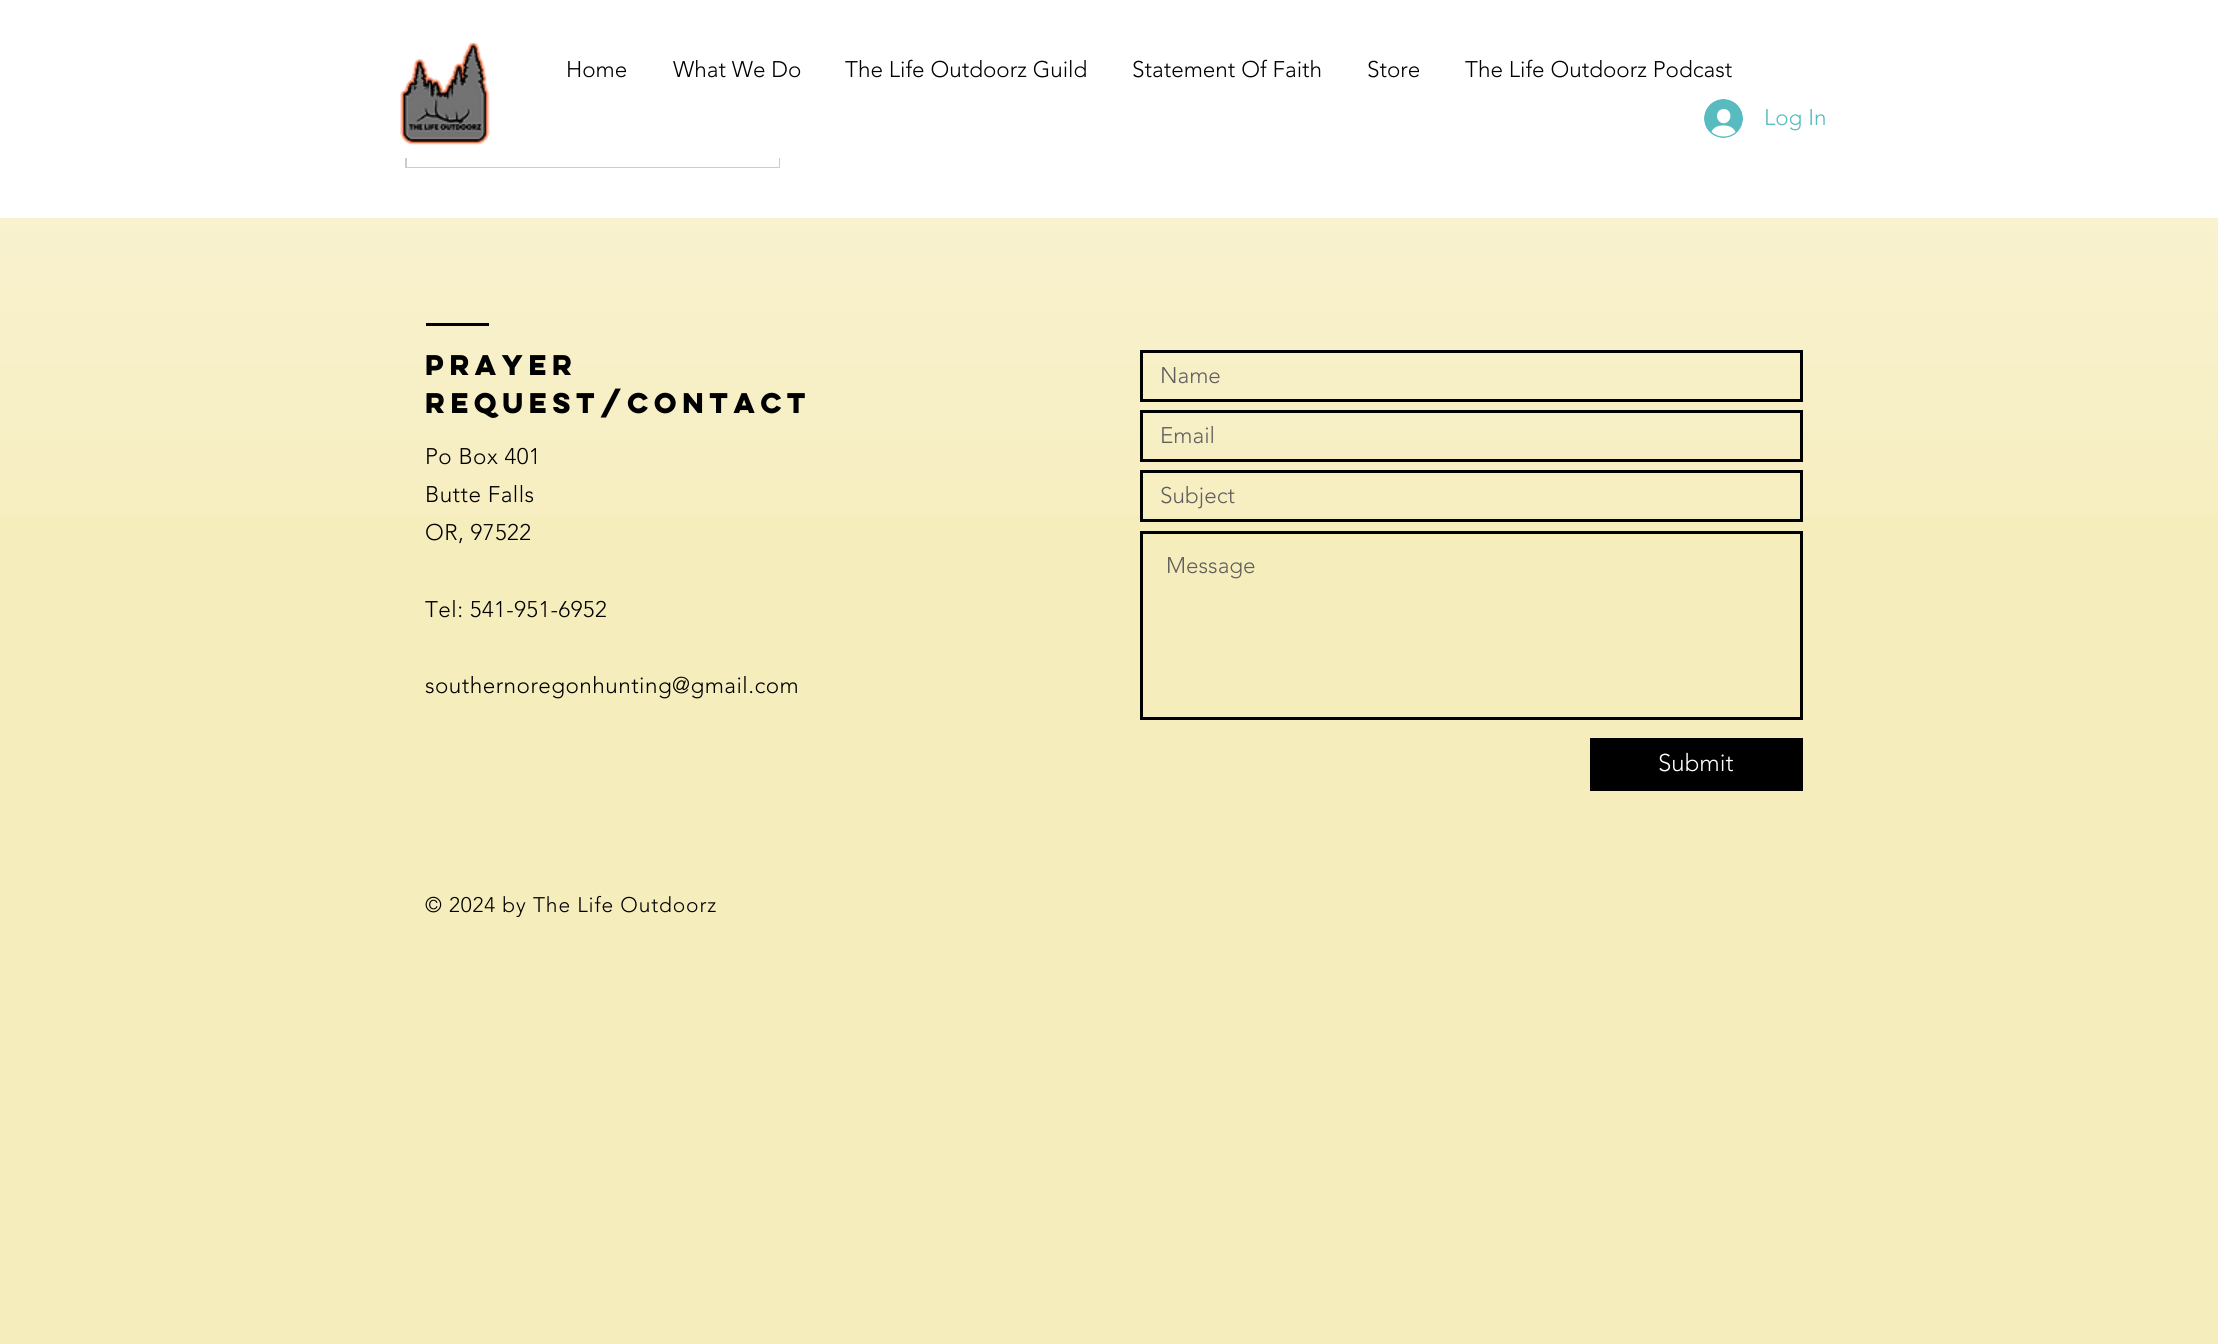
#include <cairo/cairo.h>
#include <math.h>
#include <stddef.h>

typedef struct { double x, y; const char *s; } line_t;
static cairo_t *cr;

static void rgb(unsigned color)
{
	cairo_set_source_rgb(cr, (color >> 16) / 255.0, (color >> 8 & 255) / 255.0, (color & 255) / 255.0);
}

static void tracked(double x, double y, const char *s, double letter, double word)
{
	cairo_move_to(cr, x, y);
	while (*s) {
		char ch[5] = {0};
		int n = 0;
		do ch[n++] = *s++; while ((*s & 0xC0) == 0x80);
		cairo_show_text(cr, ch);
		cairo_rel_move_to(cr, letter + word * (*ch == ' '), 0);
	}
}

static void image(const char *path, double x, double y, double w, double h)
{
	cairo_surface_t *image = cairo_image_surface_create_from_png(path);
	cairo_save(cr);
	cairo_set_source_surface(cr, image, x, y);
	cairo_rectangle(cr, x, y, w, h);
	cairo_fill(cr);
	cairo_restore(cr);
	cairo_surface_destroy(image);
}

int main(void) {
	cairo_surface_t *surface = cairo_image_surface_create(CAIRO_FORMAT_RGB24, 2218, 1344);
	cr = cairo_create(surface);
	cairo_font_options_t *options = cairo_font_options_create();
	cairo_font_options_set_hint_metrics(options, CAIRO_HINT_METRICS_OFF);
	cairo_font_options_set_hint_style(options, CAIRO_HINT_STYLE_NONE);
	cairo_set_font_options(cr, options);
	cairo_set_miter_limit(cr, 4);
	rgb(0xffffff);
	cairo_paint(cr);
	cairo_rectangle(cr, 406, -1, 373, 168);
	rgb(0xcccccc);
	cairo_stroke(cr);
	rgb(0xffffff);
	cairo_rectangle(cr, 407, 158, 372, 9);
	cairo_fill(cr);
	cairo_rectangle(cr, 405, 0, 375, 158);
	cairo_fill(cr);
	image("img/1.png", 400, 41, 90, 105);
	image("img/2.png", 1704, 99, 39, 39);
	rgb(0xf6edbd);
	cairo_rectangle(cr, 0, 218, 2218, 1126);
	cairo_fill(cr);
	image("img/3.png", 0, 218, 2218, 298);
	rgb(0x000000);
	cairo_rectangle(cr, 426, 323, 63, 3);
	cairo_fill(cr);
	cairo_rectangle(cr, 1141.5, 351.5, 660, 49);
	cairo_set_line_width(cr, 3);
	cairo_stroke(cr);
	cairo_rectangle(cr, 1141.5, 411.5, 660, 49);
	cairo_stroke(cr);
	cairo_rectangle(cr, 1141.5, 471.5, 660, 49);
	cairo_stroke(cr);
	cairo_rectangle(cr, 1141.5, 532.5, 660, 186);
	cairo_stroke(cr);
	cairo_rectangle(cr, 1590, 738, 213, 53);
	cairo_fill(cr);
	cairo_select_font_face(cr, "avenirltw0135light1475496 Light", CAIRO_FONT_SLANT_NORMAL, CAIRO_FONT_WEIGHT_NORMAL);
	cairo_set_font_size(cr, 22.5);
	{
		static const line_t items[] = {
			{566, 77, "Home"},
			{673, 77, "What We Do"},
			{845, 77, "The Life Outdoorz Guild"},
			{1132, 77, "Statement Of Faith"},
			{1367, 77, "Store"},
			{1465, 77, "The Life Outdoorz Podcast"},
		};
		for (size_t i = 0; i < sizeof items / sizeof *items; i++) {
			cairo_move_to(cr, items[i].x, items[i].y);
			cairo_show_text(cr, items[i].s);
		}
	}
	rgb(0x57bbbf);
	cairo_move_to(cr, 1764, 125);
	cairo_show_text(cr, "Log In");
	cairo_select_font_face(cr, "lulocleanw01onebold", CAIRO_FONT_SLANT_NORMAL, CAIRO_FONT_WEIGHT_BOLD);
	cairo_set_font_size(cr, 25.5);
	rgb(0x000000);
	cairo_move_to(cr, 425, 375);
	cairo_show_text(cr, "Prayer");
	cairo_move_to(cr, 425, 413);
	cairo_show_text(cr, "Request/Contact");
	cairo_select_font_face(cr, "avenirltw0135light1475496 Light", CAIRO_FONT_SLANT_NORMAL, CAIRO_FONT_WEIGHT_NORMAL);
	cairo_set_font_size(cr, 22.5);
	rgb(0x605e5e);
	{
		static const line_t items[] = {
			{1160, 383, "Name"},
			{1160, 443, "Email"},
			{1160, 503, "Subject"},
			{1166, 573, "Message"},
		};
		for (size_t i = 0; i < sizeof items / sizeof *items; i++) {
			cairo_move_to(cr, items[i].x, items[i].y);
			cairo_show_text(cr, items[i].s);
		}
	}
	cairo_set_font_size(cr, 24);
	rgb(0xffffff);
	cairo_move_to(cr, 1658, 771);
	cairo_show_text(cr, "Submit");
	cairo_set_font_size(cr, 22.5);
	rgb(0x000000);
	{
		static const line_t items[] = {
			{425, 464, "Po Box 401"},
			{425, 502, "Butte Falls"},
			{425, 540, "OR, 97522"},
			{425, 617, "Tel: 541-951-6952"},
			{425, 693, "southernoregonhunting@gmail.com"},
		};
		for (size_t i = 0; i < sizeof items / sizeof *items; i++) {
			tracked(items[i].x, items[i].y, items[i].s, 0.45, 0);
		}
	}
	cairo_set_font_size(cr, 21);
	tracked(425, 912, "© 2024 by The Life Outdoorz", 0.85, 0);
	cairo_surface_write_to_png(surface, "page.png");
	cairo_font_options_destroy(options);
	cairo_destroy(cr);
	cairo_surface_destroy(surface);
	return 0;
}
